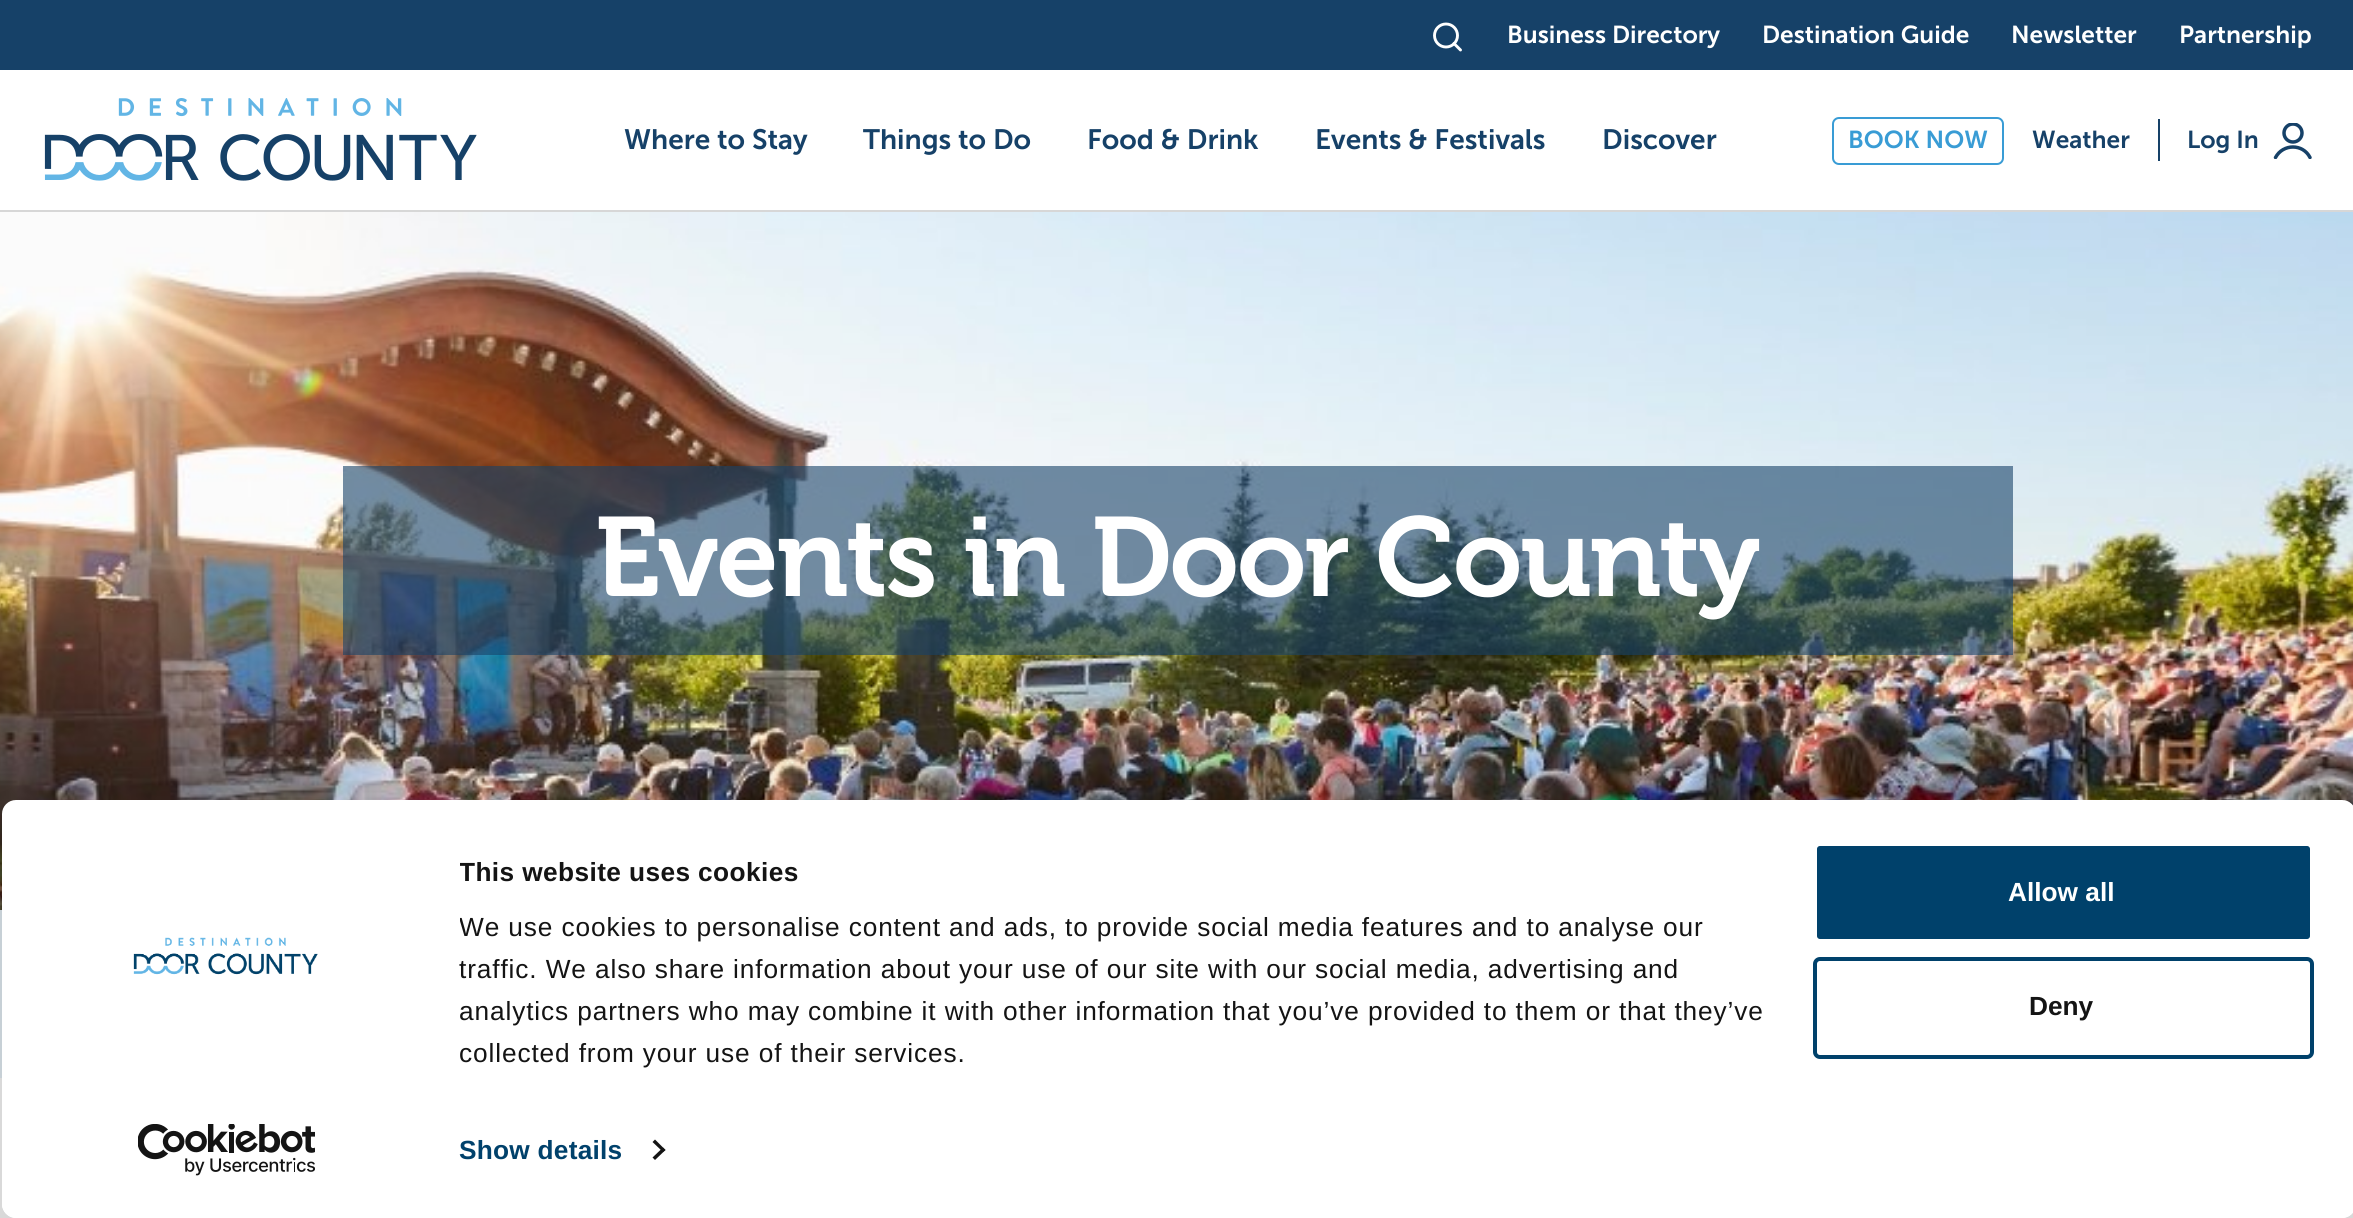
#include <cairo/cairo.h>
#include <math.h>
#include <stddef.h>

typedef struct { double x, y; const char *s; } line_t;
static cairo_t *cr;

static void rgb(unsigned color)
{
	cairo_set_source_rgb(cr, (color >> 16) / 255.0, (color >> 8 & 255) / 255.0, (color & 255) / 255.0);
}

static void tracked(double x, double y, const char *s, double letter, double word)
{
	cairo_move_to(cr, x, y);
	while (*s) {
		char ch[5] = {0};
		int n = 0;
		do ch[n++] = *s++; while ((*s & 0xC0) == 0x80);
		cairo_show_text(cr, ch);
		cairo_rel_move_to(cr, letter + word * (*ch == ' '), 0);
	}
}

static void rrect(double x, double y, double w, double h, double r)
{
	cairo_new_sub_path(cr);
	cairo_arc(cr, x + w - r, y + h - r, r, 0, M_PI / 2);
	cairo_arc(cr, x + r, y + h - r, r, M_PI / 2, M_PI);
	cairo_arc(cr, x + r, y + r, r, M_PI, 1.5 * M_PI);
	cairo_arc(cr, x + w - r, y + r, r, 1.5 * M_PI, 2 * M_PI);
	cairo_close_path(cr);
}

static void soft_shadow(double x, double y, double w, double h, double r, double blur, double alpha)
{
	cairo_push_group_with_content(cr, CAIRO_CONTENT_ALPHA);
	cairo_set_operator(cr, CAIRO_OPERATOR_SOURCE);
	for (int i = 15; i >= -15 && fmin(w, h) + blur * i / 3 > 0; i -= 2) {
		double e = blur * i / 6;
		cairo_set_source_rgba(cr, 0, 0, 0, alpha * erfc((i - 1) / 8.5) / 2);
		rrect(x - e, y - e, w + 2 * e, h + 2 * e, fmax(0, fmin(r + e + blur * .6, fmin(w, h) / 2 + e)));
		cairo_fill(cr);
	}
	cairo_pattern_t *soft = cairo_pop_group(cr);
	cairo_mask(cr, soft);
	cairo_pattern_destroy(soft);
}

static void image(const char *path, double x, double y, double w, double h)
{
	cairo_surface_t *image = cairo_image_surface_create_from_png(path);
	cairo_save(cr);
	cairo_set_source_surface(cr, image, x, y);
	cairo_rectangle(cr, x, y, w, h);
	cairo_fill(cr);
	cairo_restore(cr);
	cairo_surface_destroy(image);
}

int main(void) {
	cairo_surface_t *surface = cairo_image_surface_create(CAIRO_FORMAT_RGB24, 2353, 1218);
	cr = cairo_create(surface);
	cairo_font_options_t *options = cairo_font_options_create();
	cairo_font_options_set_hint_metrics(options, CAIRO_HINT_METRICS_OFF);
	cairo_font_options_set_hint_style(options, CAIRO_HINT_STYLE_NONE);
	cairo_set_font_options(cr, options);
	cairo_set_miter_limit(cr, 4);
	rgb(0xffffff);
	cairo_paint(cr);
	rgb(0x164168);
	cairo_rectangle(cr, 0, 0, 2353, 70);
	cairo_fill(cr);
	cairo_arc(cr, 1446, 35.5, 11.5, 0, 2 * M_PI);
	rgb(0xffffff);
	cairo_set_line_width(cr, 2.9);
	cairo_stroke(cr);
	cairo_new_path(cr);
	cairo_move_to(cr, 1460.5, 50);
	cairo_line_to(cr, 1454, 43.5);
	cairo_set_line_cap(cr, CAIRO_LINE_CAP_ROUND);
	cairo_set_line_join(cr, CAIRO_LINE_JOIN_ROUND);
	cairo_stroke(cr);
	image("img/1.png", 44, 98, 433, 83);
	rrect(1833, 118, 170, 46, 6);
	rgb(0x399cd5);
	cairo_set_line_width(cr, 2);
	cairo_set_line_cap(cr, CAIRO_LINE_CAP_BUTT);
	cairo_set_line_join(cr, CAIRO_LINE_JOIN_MITER);
	cairo_stroke(cr);
	rgb(0x164168);
	cairo_rectangle(cr, 2158, 119, 2, 42);
	cairo_fill(cr);
	cairo_save(cr);
	cairo_rectangle(cr, 2273, 123, 39, 36);
	cairo_clip(cr);
	cairo_arc(cr, 2293, 133, 9, 0, 2 * M_PI);
	cairo_set_line_width(cr, 3.5);
	cairo_stroke(cr);
	cairo_new_path(cr);
	cairo_move_to(cr, 2310, 157.5);
	cairo_curve_to(cr, 2303, 143.5, 2283, 143.5, 2275.5, 157.5);
	cairo_set_line_cap(cr, CAIRO_LINE_CAP_ROUND);
	cairo_stroke(cr);
	cairo_restore(cr);
	rgb(0xd7d7d7);
	cairo_rectangle(cr, 0, 210, 2353, 2);
	cairo_fill(cr);
	image("img/2.png", 0, 212, 2353, 698);
	cairo_set_source_rgba(cr, 0.086, 0.255, 0.408, 0.6);
	cairo_rectangle(cr, 343, 466, 1670, 189);
	cairo_fill(cr);
	rgb(0xeaf5fc);
	cairo_rectangle(cr, 0, 910, 2, 168);
	cairo_fill(cr);
	cairo_save(cr);
	cairo_set_fill_rule(cr, CAIRO_FILL_RULE_EVEN_ODD);
	cairo_new_path(cr);
	cairo_move_to(cr, 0, 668);
	cairo_line_to(cr, 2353, 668);
	cairo_line_to(cr, 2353, 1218);
	cairo_line_to(cr, 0, 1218);
	cairo_close_path(cr);
	cairo_move_to(cr, 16, 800);
	cairo_line_to(cr, 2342, 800);
	cairo_curve_to(cr, 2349.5, 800, 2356, 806.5, 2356, 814);
	cairo_line_to(cr, 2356, 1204);
	cairo_curve_to(cr, 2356, 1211.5, 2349.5, 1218, 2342, 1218);
	cairo_line_to(cr, 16, 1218);
	cairo_curve_to(cr, 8.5, 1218, 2, 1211.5, 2, 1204);
	cairo_line_to(cr, 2, 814);
	cairo_curve_to(cr, 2, 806.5, 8.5, 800, 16, 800);
	cairo_close_path(cr);
	cairo_clip(cr);
	rgb(0x000000);
	soft_shadow(2, 852, 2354, 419, 14, 61, 0.3);
	cairo_restore(cr);
	rgb(0xffffff);
	rrect(2, 800, 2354, 418, 14);
	cairo_fill(cr);
	image("img/3.png", 133, 937, 185, 38);
	image("img/4.png", 138, 1124, 177, 52);
	rgb(0x141414);
	cairo_new_path(cr);
	cairo_move_to(cr, 655, 1139.5);
	cairo_line_to(cr, 665.5, 1150);
	cairo_line_to(cr, 663, 1152);
	cairo_line_to(cr, 652.5, 1142);
	cairo_close_path(cr);
	cairo_fill(cr);
	cairo_new_path(cr);
	cairo_move_to(cr, 663, 1147.5);
	cairo_line_to(cr, 665.5, 1150);
	cairo_line_to(cr, 655, 1160);
	cairo_line_to(cr, 652.5, 1157.5);
	cairo_close_path(cr);
	cairo_fill(cr);
	rgb(0x00416b);
	rrect(1815, 844, 497, 97, 5);
	cairo_fill_preserve(cr);
	rgb(0xffffff);
	cairo_set_line_width(cr, 4);
	cairo_stroke(cr);
	rrect(1815, 959, 497, 98, 5);
	rgb(0x00416b);
	cairo_stroke(cr);
	cairo_select_font_face(cr, "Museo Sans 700 SemiBold", CAIRO_FONT_SLANT_NORMAL, CAIRO_FONT_WEIGHT_NORMAL);
	cairo_set_font_size(cr, 24.5);
	rgb(0xffffff);
	{
		static const line_t items[] = {
			{1507, 43, "Business Directory"},
			{1762, 43, "Destination Guide"},
			{2011, 43, "Newsletter"},
			{2179, 43, "Partnership"},
		};
		for (size_t i = 0; i < sizeof items / sizeof *items; i++) {
			cairo_move_to(cr, items[i].x, items[i].y);
			cairo_show_text(cr, items[i].s);
		}
	}
	cairo_set_font_size(cr, 28);
	rgb(0x164168);
	{
		static const line_t items[] = {
			{624, 149, "Where to Stay"},
			{863, 149, "Things to Do"},
			{1087, 149, "Food & Drink"},
			{1315, 149, "Events & Festivals"},
			{1602, 149, "Discover"},
		};
		for (size_t i = 0; i < sizeof items / sizeof *items; i++) {
			cairo_move_to(cr, items[i].x, items[i].y);
			cairo_show_text(cr, items[i].s);
		}
	}
	cairo_set_font_size(cr, 24.5);
	rgb(0x399cd5);
	cairo_move_to(cr, 1848, 148);
	cairo_show_text(cr, "BOOK NOW");
	rgb(0x164168);
	cairo_move_to(cr, 2032, 148);
	cairo_show_text(cr, "Weather");
	cairo_move_to(cr, 2187, 148);
	cairo_show_text(cr, "Log In");
	cairo_select_font_face(cr, "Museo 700 SemiBold", CAIRO_FONT_SLANT_NORMAL, CAIRO_FONT_WEIGHT_NORMAL);
	cairo_set_font_size(cr, 112);
	rgb(0xffffff);
	tracked(595, 596, "Events in Door County", -2.25, 0);
	cairo_save(cr);
	cairo_rectangle(cr, 460, 852, 1343, 223);
	cairo_clip(cr);
	cairo_select_font_face(cr, "Liberation Sans", CAIRO_FONT_SLANT_NORMAL, CAIRO_FONT_WEIGHT_BOLD);
	cairo_set_font_size(cr, 26.25);
	rgb(0x141414);
	tracked(459, 881, "This website uses cookies", 0.4, 0);
	cairo_select_font_face(cr, "Liberation Sans", CAIRO_FONT_SLANT_NORMAL, CAIRO_FONT_WEIGHT_NORMAL);
	tracked(459, 936, "We use cookies to personalise content and ads, to provide social media features and to analyse our", 0.88, 0);
	cairo_restore(cr);
	cairo_select_font_face(cr, "Liberation Sans", CAIRO_FONT_SLANT_NORMAL, CAIRO_FONT_WEIGHT_NORMAL);
	cairo_set_font_size(cr, 26.25);
	rgb(0x141414);
	tracked(459, 978, "traffic. We also share information about your use of our site with our social media, advertising and", 0.88, 0);
	tracked(459, 1020, "analytics partners who may combine it with other information that you’ve provided to them or that they’ve", 0.88, 0);
	cairo_save(cr);
	cairo_rectangle(cr, 460, 852, 1343, 223);
	cairo_clip(cr);
	tracked(459, 1062, "collected from your use of their services.", 0.88, 0);
	cairo_restore(cr);
	cairo_select_font_face(cr, "Liberation Sans", CAIRO_FONT_SLANT_NORMAL, CAIRO_FONT_WEIGHT_BOLD);
	rgb(0x00416b);
	tracked(459, 1159, "Show details", 0.25, 0);
	rgb(0xffffff);
	cairo_move_to(cr, 2008, 901);
	cairo_show_text(cr, "Allow all");
	rgb(0x141414);
	cairo_move_to(cr, 2029, 1015);
	cairo_show_text(cr, "Deny");
	cairo_surface_write_to_png(surface, "page.png");
	cairo_font_options_destroy(options);
	cairo_destroy(cr);
	cairo_surface_destroy(surface);
	return 0;
}
